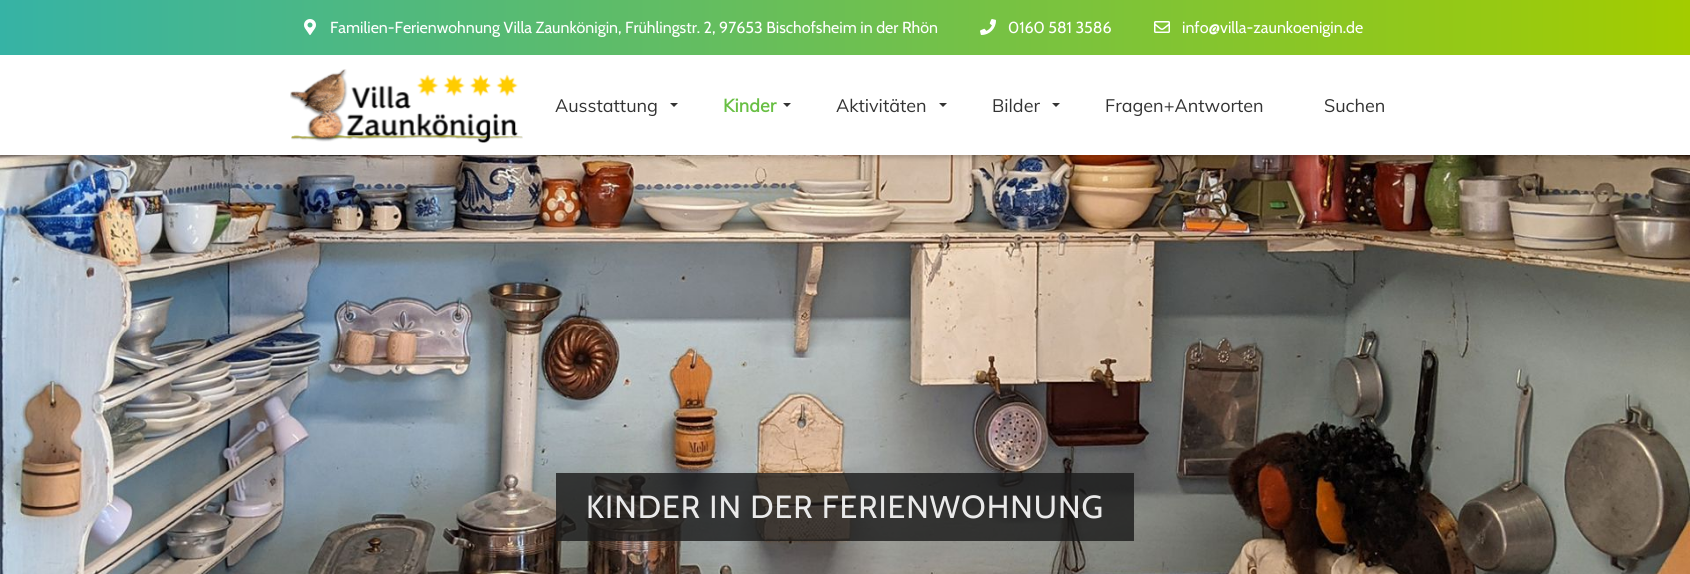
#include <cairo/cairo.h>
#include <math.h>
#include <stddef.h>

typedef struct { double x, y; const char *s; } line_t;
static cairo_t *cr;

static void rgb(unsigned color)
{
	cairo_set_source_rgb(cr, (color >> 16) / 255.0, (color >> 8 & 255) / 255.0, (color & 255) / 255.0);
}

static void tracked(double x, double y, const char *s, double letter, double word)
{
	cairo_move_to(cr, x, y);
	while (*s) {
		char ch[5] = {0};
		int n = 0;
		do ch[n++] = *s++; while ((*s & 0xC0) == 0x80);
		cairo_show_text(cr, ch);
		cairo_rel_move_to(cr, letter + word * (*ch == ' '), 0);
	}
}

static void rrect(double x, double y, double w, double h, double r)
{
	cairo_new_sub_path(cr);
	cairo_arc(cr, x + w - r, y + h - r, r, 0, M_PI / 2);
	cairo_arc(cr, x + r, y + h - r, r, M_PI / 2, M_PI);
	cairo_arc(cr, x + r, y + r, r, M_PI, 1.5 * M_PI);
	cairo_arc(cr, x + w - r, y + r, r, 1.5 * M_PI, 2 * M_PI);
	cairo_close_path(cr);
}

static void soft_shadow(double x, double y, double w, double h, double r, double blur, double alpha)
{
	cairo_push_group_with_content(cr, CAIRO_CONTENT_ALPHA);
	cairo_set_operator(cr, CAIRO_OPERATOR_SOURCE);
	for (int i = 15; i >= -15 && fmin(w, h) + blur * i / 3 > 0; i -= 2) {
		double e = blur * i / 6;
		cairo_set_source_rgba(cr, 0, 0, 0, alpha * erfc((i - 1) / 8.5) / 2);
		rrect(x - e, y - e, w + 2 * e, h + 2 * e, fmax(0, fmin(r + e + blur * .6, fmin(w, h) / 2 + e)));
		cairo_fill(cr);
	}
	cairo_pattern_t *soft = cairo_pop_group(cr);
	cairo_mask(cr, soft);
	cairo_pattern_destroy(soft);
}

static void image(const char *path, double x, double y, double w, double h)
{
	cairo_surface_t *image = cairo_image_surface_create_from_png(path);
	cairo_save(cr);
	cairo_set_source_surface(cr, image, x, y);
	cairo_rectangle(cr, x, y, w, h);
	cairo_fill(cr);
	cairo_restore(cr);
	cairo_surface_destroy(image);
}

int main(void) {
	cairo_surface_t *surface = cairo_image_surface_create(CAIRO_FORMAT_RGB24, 1690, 574);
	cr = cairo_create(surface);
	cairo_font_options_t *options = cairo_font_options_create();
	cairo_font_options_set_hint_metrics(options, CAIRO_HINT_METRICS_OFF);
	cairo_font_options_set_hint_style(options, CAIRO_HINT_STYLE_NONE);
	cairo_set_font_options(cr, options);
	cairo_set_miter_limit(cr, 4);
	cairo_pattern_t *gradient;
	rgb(0xffffff);
	cairo_paint(cr);
	image("img/5.png", 0, 155, 1690, 419);
	rgb(0x000000);
	soft_shadow(0, 2, 1690, 155, 0, 2.5, 0.25);
	gradient = cairo_pattern_create_linear(0, 28, 1690, 27);
	cairo_pattern_add_color_stop_rgba(gradient, 0, 0.212, 0.702, 0.647, 1);
	cairo_pattern_add_color_stop_rgba(gradient, 1, 0.639, 0.8, 0, 1);
	cairo_set_source(cr, gradient);
	cairo_pattern_destroy(gradient);
	cairo_rectangle(cr, 0, 0, 1690, 55);
	cairo_fill(cr);
	image("img/1.png", 304, 19, 12, 16);
	image("img/2.png", 980, 19, 16, 16);
	image("img/3.png", 1154, 21, 16, 12);
	rgb(0xffffff);
	cairo_rectangle(cr, 0, 55, 1690, 100);
	cairo_fill(cr);
	image("img/4.png", 290, 69, 233, 74);
	rgb(0x333333);
	cairo_new_path(cr);
	cairo_move_to(cr, 670, 103);
	cairo_line_to(cr, 678, 103);
	cairo_line_to(cr, 674, 107);
	cairo_close_path(cr);
	cairo_fill(cr);
	cairo_new_path(cr);
	cairo_move_to(cr, 783, 103);
	cairo_line_to(cr, 791, 103);
	cairo_line_to(cr, 787, 107);
	cairo_close_path(cr);
	cairo_fill(cr);
	cairo_new_path(cr);
	cairo_move_to(cr, 939, 103);
	cairo_line_to(cr, 947, 103);
	cairo_line_to(cr, 943, 107);
	cairo_close_path(cr);
	cairo_fill(cr);
	cairo_new_path(cr);
	cairo_move_to(cr, 1052, 103);
	cairo_line_to(cr, 1060, 103);
	cairo_line_to(cr, 1056, 107);
	cairo_close_path(cr);
	cairo_fill(cr);
	cairo_set_source_rgba(cr, 0.098, 0.098, 0.098, 0.8);
	cairo_rectangle(cr, 556, 473, 578, 68);
	cairo_fill(cr);
	cairo_select_font_face(cr, "Cabin", CAIRO_FONT_SLANT_NORMAL, CAIRO_FONT_WEIGHT_NORMAL);
	cairo_set_font_size(cr, 16);
	rgb(0xffffff);
	{
		static const line_t items[] = {
			{330, 33, "Familien-Ferienwohnung Villa Zaunkönigin, Frühlingstr. 2, 97653 Bischofsheim in der Rhön"},
			{1008, 33, "0160 581 3586"},
			{1182, 33, "info@villa-zaunkoenigin.de"},
		};
		for (size_t i = 0; i < sizeof items / sizeof *items; i++) {
			cairo_move_to(cr, items[i].x, items[i].y);
			cairo_show_text(cr, items[i].s);
		}
	}
	cairo_select_font_face(cr, "Muli", CAIRO_FONT_SLANT_NORMAL, CAIRO_FONT_WEIGHT_NORMAL);
	cairo_set_font_size(cr, 18);
	rgb(0x333333);
	cairo_move_to(cr, 555, 112);
	cairo_show_text(cr, "Ausstattung");
	cairo_select_font_face(cr, "Muli", CAIRO_FONT_SLANT_NORMAL, CAIRO_FONT_WEIGHT_BOLD);
	rgb(0x69bf44);
	cairo_move_to(cr, 723, 112);
	cairo_show_text(cr, "Kinder");
	cairo_select_font_face(cr, "Muli", CAIRO_FONT_SLANT_NORMAL, CAIRO_FONT_WEIGHT_NORMAL);
	rgb(0x333333);
	{
		static const line_t items[] = {
			{836, 112, "Aktivitäten"},
			{992, 112, "Bilder"},
			{1105, 112, "Fragen+Antworten"},
			{1324, 112, "Suchen"},
		};
		for (size_t i = 0; i < sizeof items / sizeof *items; i++) {
			cairo_move_to(cr, items[i].x, items[i].y);
			cairo_show_text(cr, items[i].s);
		}
	}
	cairo_select_font_face(cr, "Cabin", CAIRO_FONT_SLANT_NORMAL, CAIRO_FONT_WEIGHT_NORMAL);
	cairo_set_font_size(cr, 32);
	rgb(0xeaeaea);
	tracked(586, 518, "KINDER IN DER FERIENWOHNUNG", 1, 0);
	cairo_surface_write_to_png(surface, "page.png");
	cairo_font_options_destroy(options);
	cairo_destroy(cr);
	cairo_surface_destroy(surface);
	return 0;
}
